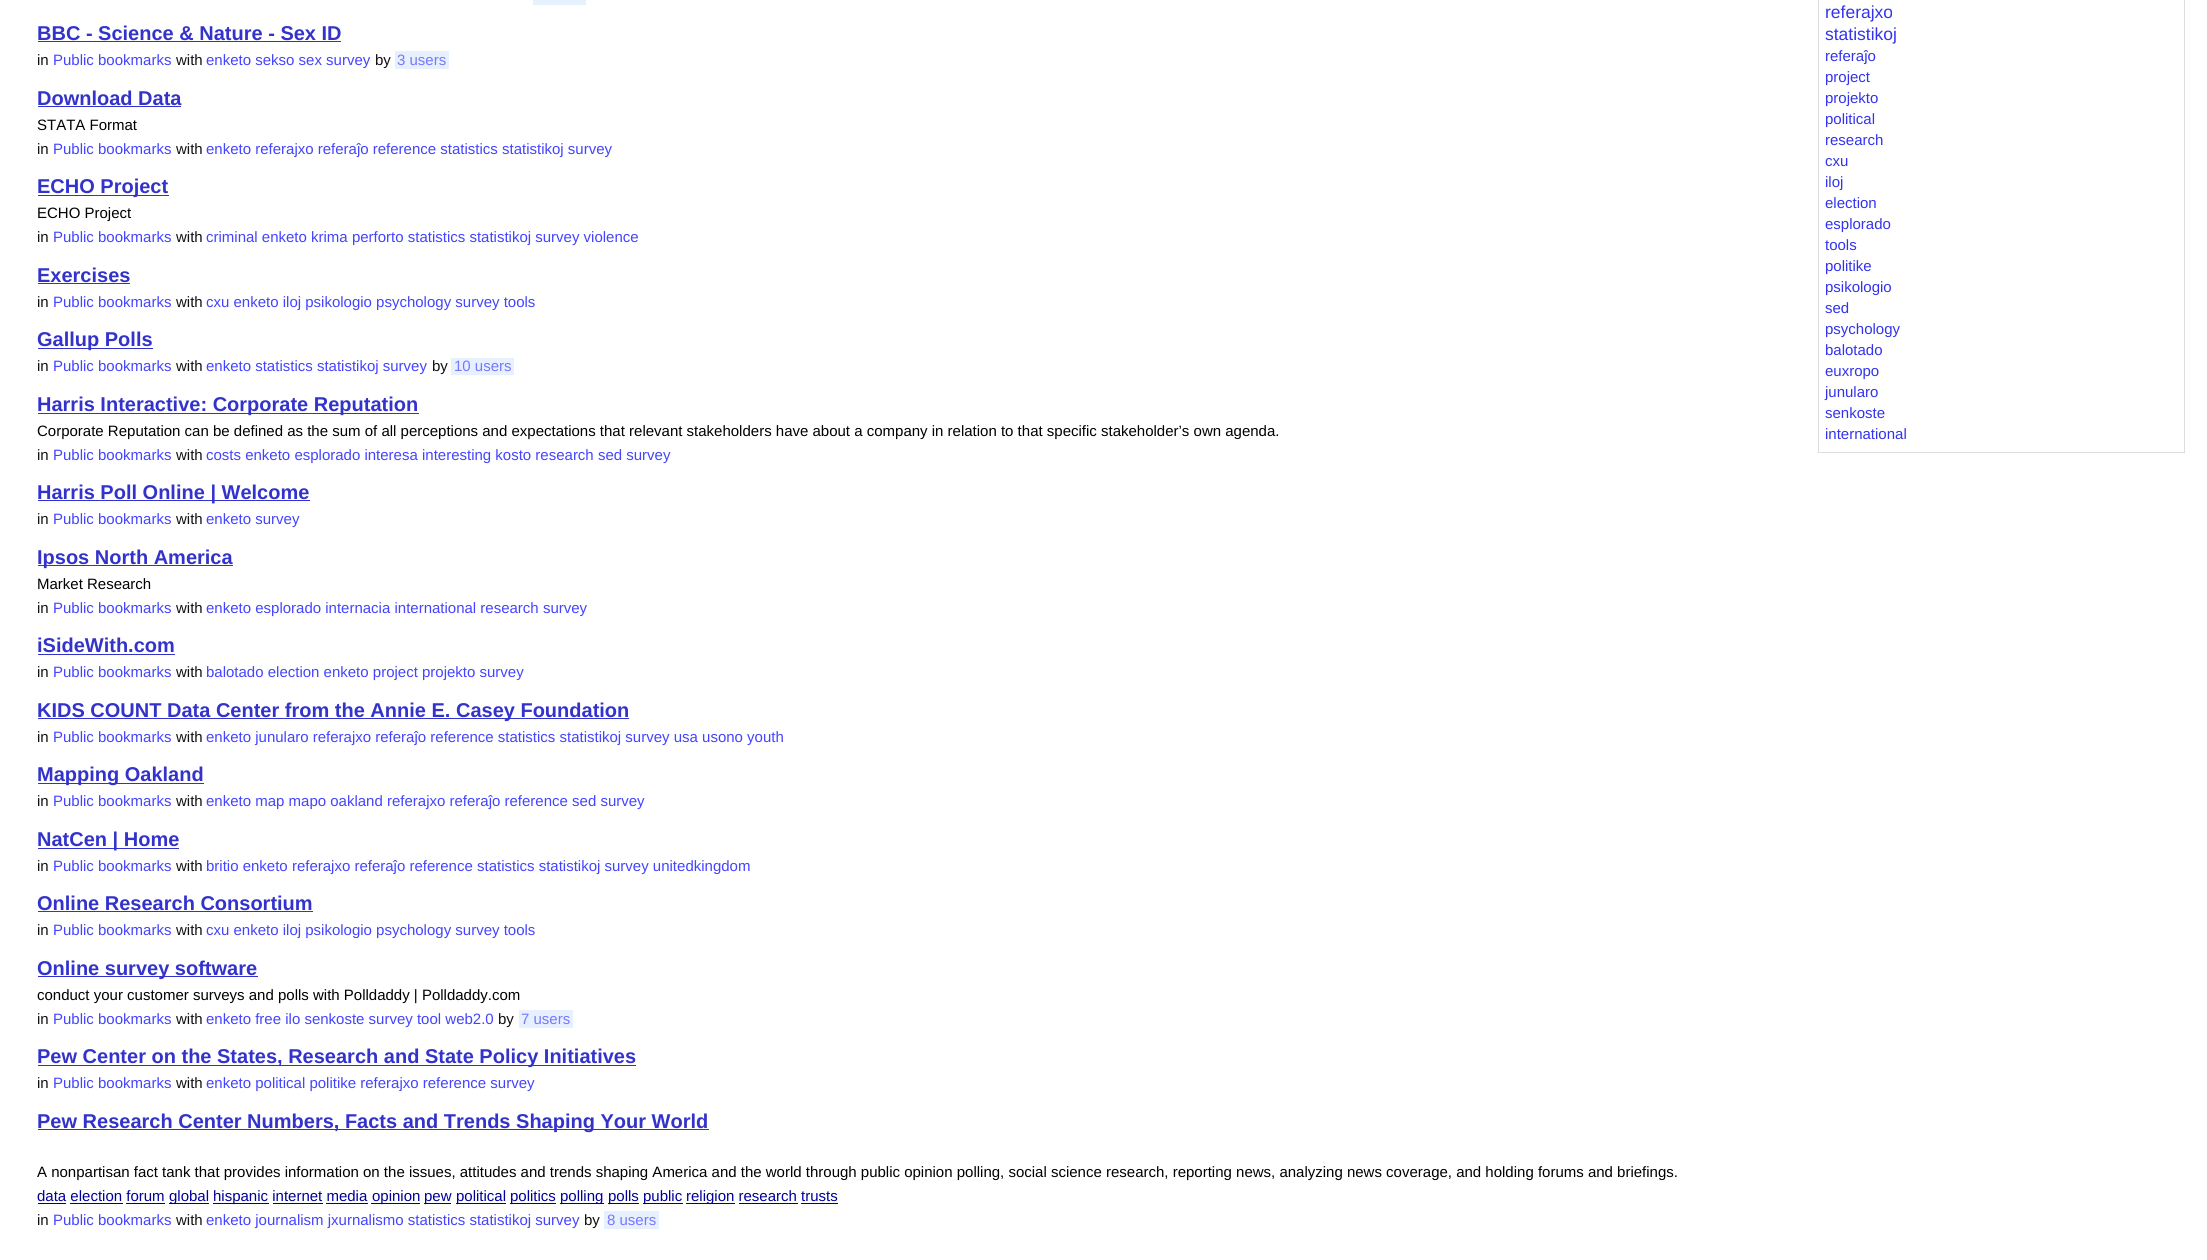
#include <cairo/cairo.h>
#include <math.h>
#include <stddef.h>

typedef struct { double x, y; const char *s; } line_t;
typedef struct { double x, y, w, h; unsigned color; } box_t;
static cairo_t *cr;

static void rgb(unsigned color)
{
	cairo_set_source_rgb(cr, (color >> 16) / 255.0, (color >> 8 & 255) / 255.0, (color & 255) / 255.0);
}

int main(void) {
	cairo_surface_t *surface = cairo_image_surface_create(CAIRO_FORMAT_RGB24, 2207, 1260);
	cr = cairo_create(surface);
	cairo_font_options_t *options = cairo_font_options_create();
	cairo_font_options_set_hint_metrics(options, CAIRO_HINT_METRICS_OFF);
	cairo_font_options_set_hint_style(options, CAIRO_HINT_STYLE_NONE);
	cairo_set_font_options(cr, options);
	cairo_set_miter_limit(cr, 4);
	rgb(0xffffff);
	cairo_paint(cr);
	{
		static const box_t items[] = {
			{533, 0, 53, 5, 0xe6f0ff},
			{38, 41, 303, 1, 0x3333cc},
			{395, 51, 54, 18, 0xe6f0ff},
			{38, 106, 143, 1, 0x3333cc},
			{38, 195, 131, 1, 0x3333cc},
			{38, 283, 92, 1, 0x3333cc},
			{38, 348, 115, 1, 0x3333cc},
			{451, 358, 63, 17, 0xe6f0ff},
			{38, 413, 381, 1, 0x3333cc},
			{38, 500, 272, 1, 0x3333cc},
			{38, 565, 195, 1, 0x3333cc},
			{38, 654, 137, 1, 0x3333cc},
			{38, 718, 591, 1, 0x3333cc},
			{38, 783, 166, 1, 0x3333cc},
			{38, 848, 141, 1, 0x3333cc},
			{38, 911, 275, 1, 0x3333cc},
			{38, 976, 220, 1, 0x3333cc},
			{519, 1010, 54, 18, 0xe6f0ff},
			{38, 1065, 598, 1, 0x3333cc},
			{38, 1129, 671, 1, 0x3333cc},
			{38, 1203, 28, 1, 0x000099},
			{169, 1203, 40, 1, 0x000099},
			{213, 1203, 56, 1, 0x000099},
			{371, 1203, 49, 1, 0x000099},
			{424, 1203, 27, 1, 0x000099},
			{456, 1203, 50, 1, 0x000099},
			{510, 1203, 46, 1, 0x000099},
			{560, 1203, 44, 1, 0x000099},
			{608, 1203, 31, 1, 0x000099},
			{643, 1203, 40, 1, 0x000099},
			{686, 1203, 49, 1, 0x000099},
			{70, 1203, 53, 1, 0x000099},
			{126, 1203, 39, 1, 0x000099},
			{273, 1203, 50, 1, 0x000099},
			{326, 1203, 42, 1, 0x000099},
			{739, 1203, 59, 1, 0x000099},
			{801, 1203, 37, 1, 0x000099},
			{604, 1211, 55, 18, 0xe6f0ff},
		};
		for (size_t i = 0; i < sizeof items / sizeof *items; i++) {
			rgb(items[i].color);
			cairo_rectangle(cr, items[i].x, items[i].y, items[i].w, items[i].h);
			cairo_fill(cr);
		}
	}
	cairo_rectangle(cr, 1818.5, -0.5, 366, 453);
	rgb(0xdddddd);
	cairo_set_line_width(cr, 1);
	cairo_stroke(cr);
	cairo_select_font_face(cr, "Liberation Sans", CAIRO_FONT_SLANT_NORMAL, CAIRO_FONT_WEIGHT_BOLD);
	cairo_set_font_size(cr, 20);
	rgb(0x3333cc);
	cairo_move_to(cr, 37, 40);
	cairo_show_text(cr, "BBC - Science & Nature - Sex ID");
	cairo_select_font_face(cr, "Liberation Sans", CAIRO_FONT_SLANT_NORMAL, CAIRO_FONT_WEIGHT_NORMAL);
	cairo_set_font_size(cr, 15);
	rgb(0x111111);
	cairo_move_to(cr, 37, 65);
	cairo_show_text(cr, "in");
	rgb(0x4444ff);
	cairo_move_to(cr, 53, 65);
	cairo_show_text(cr, "Public bookmarks");
	rgb(0x111111);
	cairo_move_to(cr, 176, 65);
	cairo_show_text(cr, "with");
	rgb(0x4444ff);
	cairo_move_to(cr, 206, 65);
	cairo_show_text(cr, "enketo sekso sex survey");
	rgb(0x111111);
	cairo_move_to(cr, 375, 65);
	cairo_show_text(cr, "by");
	rgb(0x7777ff);
	cairo_move_to(cr, 397, 65);
	cairo_show_text(cr, "3 users");
	cairo_select_font_face(cr, "Liberation Sans", CAIRO_FONT_SLANT_NORMAL, CAIRO_FONT_WEIGHT_BOLD);
	cairo_set_font_size(cr, 20);
	rgb(0x3333cc);
	cairo_move_to(cr, 37, 105);
	cairo_show_text(cr, "Download Data");
	cairo_select_font_face(cr, "Liberation Sans", CAIRO_FONT_SLANT_NORMAL, CAIRO_FONT_WEIGHT_NORMAL);
	cairo_set_font_size(cr, 15);
	rgb(0x000000);
	cairo_move_to(cr, 37, 130);
	cairo_show_text(cr, "STATA Format");
	rgb(0x111111);
	cairo_move_to(cr, 37, 154);
	cairo_show_text(cr, "in");
	rgb(0x4444ff);
	cairo_move_to(cr, 53, 154);
	cairo_show_text(cr, "Public bookmarks");
	rgb(0x111111);
	cairo_move_to(cr, 176, 154);
	cairo_show_text(cr, "with");
	rgb(0x4444ff);
	cairo_move_to(cr, 206, 154);
	cairo_show_text(cr, "enketo referajxo referaĵo reference statistics statistikoj survey");
	cairo_select_font_face(cr, "Liberation Sans", CAIRO_FONT_SLANT_NORMAL, CAIRO_FONT_WEIGHT_BOLD);
	cairo_set_font_size(cr, 20);
	rgb(0x3333cc);
	cairo_move_to(cr, 37, 193);
	cairo_show_text(cr, "ECHO Project");
	cairo_select_font_face(cr, "Liberation Sans", CAIRO_FONT_SLANT_NORMAL, CAIRO_FONT_WEIGHT_NORMAL);
	cairo_set_font_size(cr, 15);
	rgb(0x000000);
	cairo_move_to(cr, 37, 218);
	cairo_show_text(cr, "ECHO Project");
	rgb(0x111111);
	cairo_move_to(cr, 37, 242);
	cairo_show_text(cr, "in");
	rgb(0x4444ff);
	cairo_move_to(cr, 53, 242);
	cairo_show_text(cr, "Public bookmarks");
	rgb(0x111111);
	cairo_move_to(cr, 176, 242);
	cairo_show_text(cr, "with");
	rgb(0x4444ff);
	cairo_move_to(cr, 206, 242);
	cairo_show_text(cr, "criminal enketo krima perforto statistics statistikoj survey violence");
	cairo_select_font_face(cr, "Liberation Sans", CAIRO_FONT_SLANT_NORMAL, CAIRO_FONT_WEIGHT_BOLD);
	cairo_set_font_size(cr, 20);
	rgb(0x3333cc);
	cairo_move_to(cr, 37, 282);
	cairo_show_text(cr, "Exercises");
	cairo_select_font_face(cr, "Liberation Sans", CAIRO_FONT_SLANT_NORMAL, CAIRO_FONT_WEIGHT_NORMAL);
	cairo_set_font_size(cr, 15);
	rgb(0x111111);
	cairo_move_to(cr, 37, 307);
	cairo_show_text(cr, "in");
	rgb(0x4444ff);
	cairo_move_to(cr, 53, 307);
	cairo_show_text(cr, "Public bookmarks");
	rgb(0x111111);
	cairo_move_to(cr, 176, 307);
	cairo_show_text(cr, "with");
	rgb(0x4444ff);
	cairo_move_to(cr, 206, 307);
	cairo_show_text(cr, "cxu enketo iloj psikologio psychology survey tools");
	cairo_select_font_face(cr, "Liberation Sans", CAIRO_FONT_SLANT_NORMAL, CAIRO_FONT_WEIGHT_BOLD);
	cairo_set_font_size(cr, 20);
	rgb(0x3333cc);
	cairo_move_to(cr, 37, 346);
	cairo_show_text(cr, "Gallup Polls");
	cairo_select_font_face(cr, "Liberation Sans", CAIRO_FONT_SLANT_NORMAL, CAIRO_FONT_WEIGHT_NORMAL);
	cairo_set_font_size(cr, 15);
	rgb(0x111111);
	cairo_move_to(cr, 37, 371);
	cairo_show_text(cr, "in");
	rgb(0x4444ff);
	cairo_move_to(cr, 53, 371);
	cairo_show_text(cr, "Public bookmarks");
	rgb(0x111111);
	cairo_move_to(cr, 176, 371);
	cairo_show_text(cr, "with");
	rgb(0x4444ff);
	cairo_move_to(cr, 206, 371);
	cairo_show_text(cr, "enketo statistics statistikoj survey");
	rgb(0x111111);
	cairo_move_to(cr, 432, 371);
	cairo_show_text(cr, "by");
	rgb(0x7777ff);
	cairo_move_to(cr, 454, 371);
	cairo_show_text(cr, "10 users");
	cairo_select_font_face(cr, "Liberation Sans", CAIRO_FONT_SLANT_NORMAL, CAIRO_FONT_WEIGHT_BOLD);
	cairo_set_font_size(cr, 20);
	rgb(0x3333cc);
	cairo_move_to(cr, 37, 411);
	cairo_show_text(cr, "Harris Interactive: Corporate Reputation");
	cairo_select_font_face(cr, "Liberation Sans", CAIRO_FONT_SLANT_NORMAL, CAIRO_FONT_WEIGHT_NORMAL);
	cairo_set_font_size(cr, 15);
	rgb(0x000000);
	cairo_move_to(cr, 37, 436);
	cairo_show_text(cr, "Corporate Reputation can be defined as the sum of all perceptions and expectations that relevant stakeholders have about a company in relation to that specific stakeholder’s own agenda.");
	rgb(0x111111);
	cairo_move_to(cr, 37, 460);
	cairo_show_text(cr, "in");
	rgb(0x4444ff);
	cairo_move_to(cr, 53, 460);
	cairo_show_text(cr, "Public bookmarks");
	rgb(0x111111);
	cairo_move_to(cr, 176, 460);
	cairo_show_text(cr, "with");
	rgb(0x4444ff);
	cairo_move_to(cr, 206, 460);
	cairo_show_text(cr, "costs enketo esplorado interesa interesting kosto research sed survey");
	cairo_select_font_face(cr, "Liberation Sans", CAIRO_FONT_SLANT_NORMAL, CAIRO_FONT_WEIGHT_BOLD);
	cairo_set_font_size(cr, 20);
	rgb(0x3333cc);
	cairo_move_to(cr, 37, 499);
	cairo_show_text(cr, "Harris Poll Online | Welcome");
	cairo_select_font_face(cr, "Liberation Sans", CAIRO_FONT_SLANT_NORMAL, CAIRO_FONT_WEIGHT_NORMAL);
	cairo_set_font_size(cr, 15);
	rgb(0x111111);
	cairo_move_to(cr, 37, 524);
	cairo_show_text(cr, "in");
	rgb(0x4444ff);
	cairo_move_to(cr, 53, 524);
	cairo_show_text(cr, "Public bookmarks");
	rgb(0x111111);
	cairo_move_to(cr, 176, 524);
	cairo_show_text(cr, "with");
	rgb(0x4444ff);
	cairo_move_to(cr, 206, 524);
	cairo_show_text(cr, "enketo survey");
	cairo_select_font_face(cr, "Liberation Sans", CAIRO_FONT_SLANT_NORMAL, CAIRO_FONT_WEIGHT_BOLD);
	cairo_set_font_size(cr, 20);
	rgb(0x3333cc);
	cairo_move_to(cr, 37, 564);
	cairo_show_text(cr, "Ipsos North America");
	cairo_select_font_face(cr, "Liberation Sans", CAIRO_FONT_SLANT_NORMAL, CAIRO_FONT_WEIGHT_NORMAL);
	cairo_set_font_size(cr, 15);
	rgb(0x000000);
	cairo_move_to(cr, 37, 589);
	cairo_show_text(cr, "Market Research");
	rgb(0x111111);
	cairo_move_to(cr, 37, 613);
	cairo_show_text(cr, "in");
	rgb(0x4444ff);
	cairo_move_to(cr, 53, 613);
	cairo_show_text(cr, "Public bookmarks");
	rgb(0x111111);
	cairo_move_to(cr, 176, 613);
	cairo_show_text(cr, "with");
	rgb(0x4444ff);
	cairo_move_to(cr, 206, 613);
	cairo_show_text(cr, "enketo esplorado internacia international research survey");
	cairo_select_font_face(cr, "Liberation Sans", CAIRO_FONT_SLANT_NORMAL, CAIRO_FONT_WEIGHT_BOLD);
	cairo_set_font_size(cr, 20);
	rgb(0x3333cc);
	cairo_move_to(cr, 37, 652);
	cairo_show_text(cr, "iSideWith.com");
	cairo_select_font_face(cr, "Liberation Sans", CAIRO_FONT_SLANT_NORMAL, CAIRO_FONT_WEIGHT_NORMAL);
	cairo_set_font_size(cr, 15);
	rgb(0x111111);
	cairo_move_to(cr, 37, 677);
	cairo_show_text(cr, "in");
	rgb(0x4444ff);
	cairo_move_to(cr, 53, 677);
	cairo_show_text(cr, "Public bookmarks");
	rgb(0x111111);
	cairo_move_to(cr, 176, 677);
	cairo_show_text(cr, "with");
	rgb(0x4444ff);
	cairo_move_to(cr, 206, 677);
	cairo_show_text(cr, "balotado election enketo project projekto survey");
	cairo_select_font_face(cr, "Liberation Sans", CAIRO_FONT_SLANT_NORMAL, CAIRO_FONT_WEIGHT_BOLD);
	cairo_set_font_size(cr, 20);
	rgb(0x3333cc);
	cairo_move_to(cr, 37, 717);
	cairo_show_text(cr, "KIDS COUNT Data Center from the Annie E. Casey Foundation");
	cairo_select_font_face(cr, "Liberation Sans", CAIRO_FONT_SLANT_NORMAL, CAIRO_FONT_WEIGHT_NORMAL);
	cairo_set_font_size(cr, 15);
	rgb(0x111111);
	cairo_move_to(cr, 37, 742);
	cairo_show_text(cr, "in");
	rgb(0x4444ff);
	cairo_move_to(cr, 53, 742);
	cairo_show_text(cr, "Public bookmarks");
	rgb(0x111111);
	cairo_move_to(cr, 176, 742);
	cairo_show_text(cr, "with");
	rgb(0x4444ff);
	cairo_move_to(cr, 206, 742);
	cairo_show_text(cr, "enketo junularo referajxo referaĵo reference statistics statistikoj survey usa usono youth");
	cairo_select_font_face(cr, "Liberation Sans", CAIRO_FONT_SLANT_NORMAL, CAIRO_FONT_WEIGHT_BOLD);
	cairo_set_font_size(cr, 20);
	rgb(0x3333cc);
	cairo_move_to(cr, 37, 781);
	cairo_show_text(cr, "Mapping Oakland");
	cairo_select_font_face(cr, "Liberation Sans", CAIRO_FONT_SLANT_NORMAL, CAIRO_FONT_WEIGHT_NORMAL);
	cairo_set_font_size(cr, 15);
	rgb(0x111111);
	cairo_move_to(cr, 37, 806);
	cairo_show_text(cr, "in");
	rgb(0x4444ff);
	cairo_move_to(cr, 53, 806);
	cairo_show_text(cr, "Public bookmarks");
	rgb(0x111111);
	cairo_move_to(cr, 176, 806);
	cairo_show_text(cr, "with");
	rgb(0x4444ff);
	cairo_move_to(cr, 206, 806);
	cairo_show_text(cr, "enketo map mapo oakland referajxo referaĵo reference sed survey");
	cairo_select_font_face(cr, "Liberation Sans", CAIRO_FONT_SLANT_NORMAL, CAIRO_FONT_WEIGHT_BOLD);
	cairo_set_font_size(cr, 20);
	rgb(0x3333cc);
	cairo_move_to(cr, 37, 846);
	cairo_show_text(cr, "NatCen | Home");
	cairo_select_font_face(cr, "Liberation Sans", CAIRO_FONT_SLANT_NORMAL, CAIRO_FONT_WEIGHT_NORMAL);
	cairo_set_font_size(cr, 15);
	rgb(0x111111);
	cairo_move_to(cr, 37, 871);
	cairo_show_text(cr, "in");
	rgb(0x4444ff);
	cairo_move_to(cr, 53, 871);
	cairo_show_text(cr, "Public bookmarks");
	rgb(0x111111);
	cairo_move_to(cr, 176, 871);
	cairo_show_text(cr, "with");
	rgb(0x4444ff);
	cairo_move_to(cr, 206, 871);
	cairo_show_text(cr, "britio enketo referajxo referaĵo reference statistics statistikoj survey unitedkingdom");
	cairo_select_font_face(cr, "Liberation Sans", CAIRO_FONT_SLANT_NORMAL, CAIRO_FONT_WEIGHT_BOLD);
	cairo_set_font_size(cr, 20);
	rgb(0x3333cc);
	cairo_move_to(cr, 37, 910);
	cairo_show_text(cr, "Online Research Consortium");
	cairo_select_font_face(cr, "Liberation Sans", CAIRO_FONT_SLANT_NORMAL, CAIRO_FONT_WEIGHT_NORMAL);
	cairo_set_font_size(cr, 15);
	rgb(0x111111);
	cairo_move_to(cr, 37, 935);
	cairo_show_text(cr, "in");
	rgb(0x4444ff);
	cairo_move_to(cr, 53, 935);
	cairo_show_text(cr, "Public bookmarks");
	rgb(0x111111);
	cairo_move_to(cr, 176, 935);
	cairo_show_text(cr, "with");
	rgb(0x4444ff);
	cairo_move_to(cr, 206, 935);
	cairo_show_text(cr, "cxu enketo iloj psikologio psychology survey tools");
	cairo_select_font_face(cr, "Liberation Sans", CAIRO_FONT_SLANT_NORMAL, CAIRO_FONT_WEIGHT_BOLD);
	cairo_set_font_size(cr, 20);
	rgb(0x3333cc);
	cairo_move_to(cr, 37, 975);
	cairo_show_text(cr, "Online survey software");
	cairo_select_font_face(cr, "Liberation Sans", CAIRO_FONT_SLANT_NORMAL, CAIRO_FONT_WEIGHT_NORMAL);
	cairo_set_font_size(cr, 15);
	rgb(0x000000);
	cairo_move_to(cr, 37, 1000);
	cairo_show_text(cr, "conduct your customer surveys and polls with Polldaddy | Polldaddy.com");
	rgb(0x111111);
	cairo_move_to(cr, 37, 1024);
	cairo_show_text(cr, "in");
	rgb(0x4444ff);
	cairo_move_to(cr, 53, 1024);
	cairo_show_text(cr, "Public bookmarks");
	rgb(0x111111);
	cairo_move_to(cr, 176, 1024);
	cairo_show_text(cr, "with");
	rgb(0x4444ff);
	cairo_move_to(cr, 206, 1024);
	cairo_show_text(cr, "enketo free ilo senkoste survey tool web2.0");
	rgb(0x111111);
	cairo_move_to(cr, 498, 1024);
	cairo_show_text(cr, "by");
	rgb(0x7777ff);
	cairo_move_to(cr, 521, 1024);
	cairo_show_text(cr, "7 users");
	cairo_select_font_face(cr, "Liberation Sans", CAIRO_FONT_SLANT_NORMAL, CAIRO_FONT_WEIGHT_BOLD);
	cairo_set_font_size(cr, 20);
	rgb(0x3333cc);
	cairo_move_to(cr, 37, 1063);
	cairo_show_text(cr, "Pew Center on the States, Research and State Policy Initiatives");
	cairo_select_font_face(cr, "Liberation Sans", CAIRO_FONT_SLANT_NORMAL, CAIRO_FONT_WEIGHT_NORMAL);
	cairo_set_font_size(cr, 15);
	rgb(0x111111);
	cairo_move_to(cr, 37, 1088);
	cairo_show_text(cr, "in");
	rgb(0x4444ff);
	cairo_move_to(cr, 53, 1088);
	cairo_show_text(cr, "Public bookmarks");
	rgb(0x111111);
	cairo_move_to(cr, 176, 1088);
	cairo_show_text(cr, "with");
	rgb(0x4444ff);
	cairo_move_to(cr, 206, 1088);
	cairo_show_text(cr, "enketo political politike referajxo reference survey");
	cairo_select_font_face(cr, "Liberation Sans", CAIRO_FONT_SLANT_NORMAL, CAIRO_FONT_WEIGHT_BOLD);
	cairo_set_font_size(cr, 20);
	rgb(0x3333cc);
	cairo_move_to(cr, 37, 1128);
	cairo_show_text(cr, "Pew Research Center Numbers, Facts and Trends Shaping Your World");
	cairo_select_font_face(cr, "Liberation Sans", CAIRO_FONT_SLANT_NORMAL, CAIRO_FONT_WEIGHT_NORMAL);
	cairo_set_font_size(cr, 15);
	rgb(0x000000);
	cairo_move_to(cr, 37, 1177);
	cairo_show_text(cr, "A nonpartisan fact tank that provides information on the issues, attitudes and trends shaping America and the world through public opinion polling, social science research, reporting news, analyzing news coverage, and holding forums and briefings.");
	rgb(0x000099);
	{
		static const line_t items[] = {
			{37, 1201, "data election forum"},
			{169, 1201, "global"},
			{213, 1201, "hispanic internet media"},
			{372, 1201, "opinion"},
			{424, 1201, "pew"},
			{456, 1201, "political"},
			{510, 1201, "politics"},
			{560, 1201, "polling"},
			{608, 1201, "polls"},
			{643, 1201, "public"},
			{686, 1201, "religion research trusts"},
		};
		for (size_t i = 0; i < sizeof items / sizeof *items; i++) {
			cairo_move_to(cr, items[i].x, items[i].y);
			cairo_show_text(cr, items[i].s);
		}
	}
	rgb(0x111111);
	cairo_move_to(cr, 37, 1225);
	cairo_show_text(cr, "in");
	rgb(0x4444ff);
	cairo_move_to(cr, 53, 1225);
	cairo_show_text(cr, "Public bookmarks");
	rgb(0x111111);
	cairo_move_to(cr, 176, 1225);
	cairo_show_text(cr, "with");
	rgb(0x4444ff);
	cairo_move_to(cr, 206, 1225);
	cairo_show_text(cr, "enketo journalism jxurnalismo statistics statistikoj survey");
	rgb(0x111111);
	cairo_move_to(cr, 584, 1225);
	cairo_show_text(cr, "by");
	rgb(0x7777ff);
	cairo_move_to(cr, 607, 1225);
	cairo_show_text(cr, "8 users");
	cairo_set_font_size(cr, 17.5);
	rgb(0x3333ee);
	cairo_move_to(cr, 1825, 18);
	cairo_show_text(cr, "referajxo");
	cairo_move_to(cr, 1825, 40);
	cairo_show_text(cr, "statistikoj");
	cairo_set_font_size(cr, 15);
	{
		static const line_t items[] = {
			{1825, 61, "referaĵo"},
			{1825, 82, "project"},
			{1825, 103, "projekto"},
			{1825, 124, "political"},
			{1825, 145, "research"},
			{1825, 166, "cxu"},
			{1825, 187, "iloj"},
			{1825, 208, "election"},
			{1825, 229, "esplorado"},
			{1825, 250, "tools"},
			{1825, 271, "politike"},
			{1825, 292, "psikologio"},
			{1825, 313, "sed"},
			{1825, 334, "psychology"},
			{1825, 355, "balotado"},
			{1825, 376, "euxropo"},
			{1825, 397, "junularo"},
			{1825, 418, "senkoste"},
			{1825, 439, "international"},
		};
		for (size_t i = 0; i < sizeof items / sizeof *items; i++) {
			cairo_move_to(cr, items[i].x, items[i].y);
			cairo_show_text(cr, items[i].s);
		}
	}
	cairo_surface_write_to_png(surface, "page.png");
	cairo_font_options_destroy(options);
	cairo_destroy(cr);
	cairo_surface_destroy(surface);
	return 0;
}
